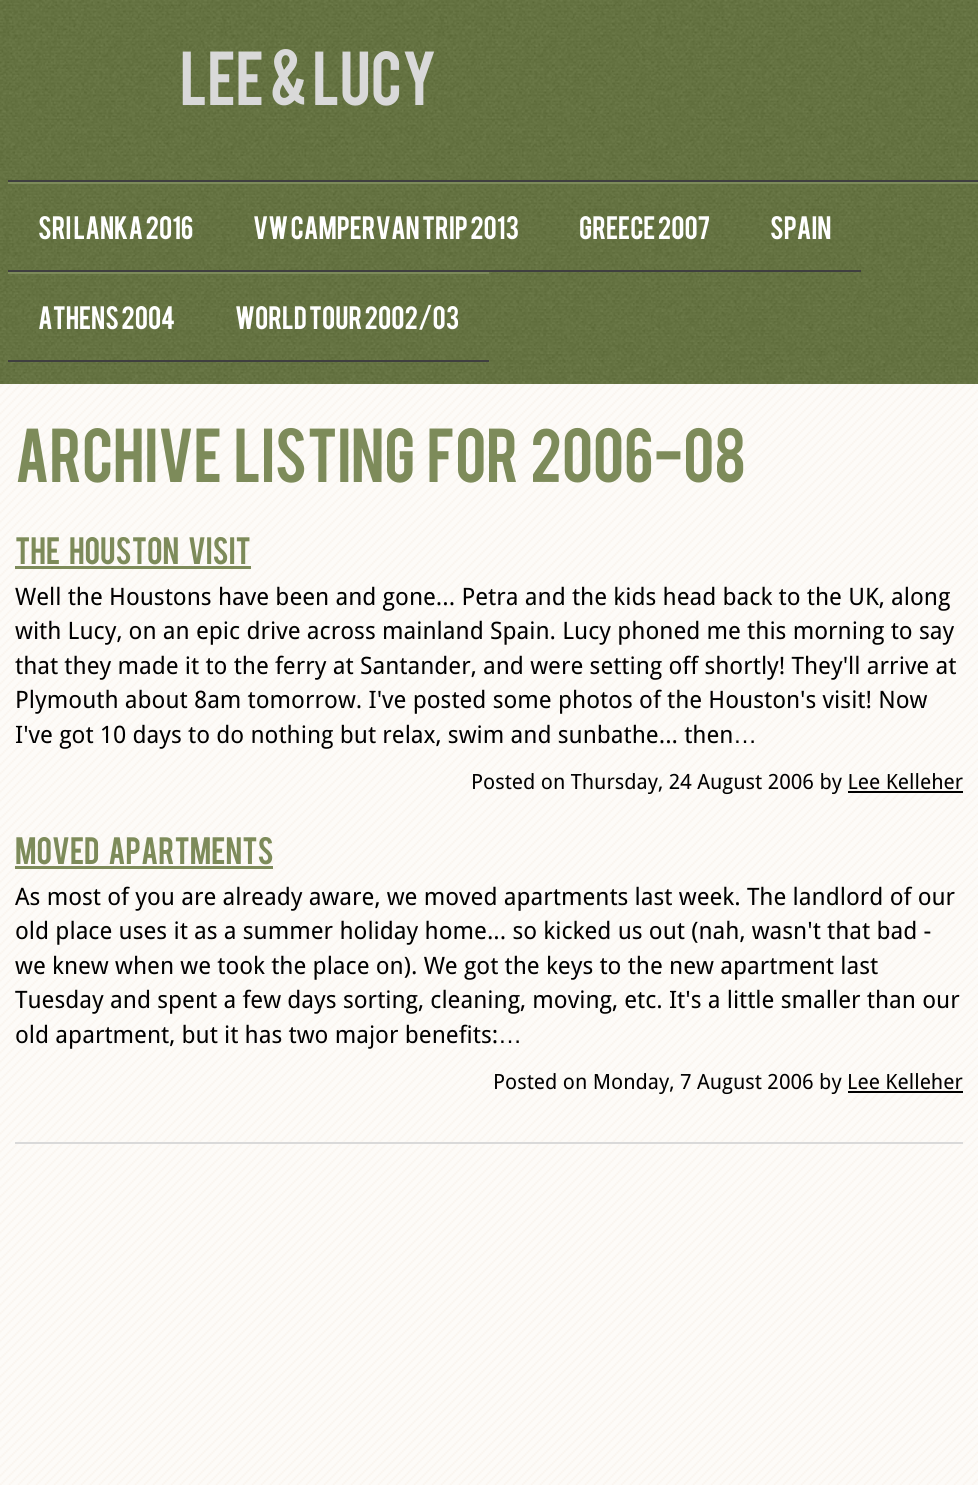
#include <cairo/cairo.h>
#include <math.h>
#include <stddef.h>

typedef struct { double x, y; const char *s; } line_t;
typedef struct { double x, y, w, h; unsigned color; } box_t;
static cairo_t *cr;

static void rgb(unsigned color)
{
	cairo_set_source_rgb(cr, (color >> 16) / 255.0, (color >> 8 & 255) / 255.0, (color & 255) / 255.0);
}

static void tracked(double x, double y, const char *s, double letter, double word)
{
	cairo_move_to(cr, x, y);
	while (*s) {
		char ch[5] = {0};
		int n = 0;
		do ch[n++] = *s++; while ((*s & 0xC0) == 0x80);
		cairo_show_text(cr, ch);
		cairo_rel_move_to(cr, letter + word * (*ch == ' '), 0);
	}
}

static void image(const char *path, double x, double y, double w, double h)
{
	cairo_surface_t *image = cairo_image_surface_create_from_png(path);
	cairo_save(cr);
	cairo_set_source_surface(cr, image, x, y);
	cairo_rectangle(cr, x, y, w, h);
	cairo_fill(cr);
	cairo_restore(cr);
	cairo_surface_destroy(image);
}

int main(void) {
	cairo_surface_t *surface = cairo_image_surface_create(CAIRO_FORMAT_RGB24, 978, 1485);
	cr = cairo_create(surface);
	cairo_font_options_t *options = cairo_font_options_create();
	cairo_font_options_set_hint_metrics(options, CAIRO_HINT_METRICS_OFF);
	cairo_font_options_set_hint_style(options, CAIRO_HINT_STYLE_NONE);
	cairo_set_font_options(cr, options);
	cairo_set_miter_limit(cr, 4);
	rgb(0xffffff);
	cairo_paint(cr);
	image("img/1.png", 0, 384, 978, 1101);
	image("img/2.png", 0, 0, 978, 384);
	{
		static const box_t items[] = {
			{8, 180, 970, 2, 0x3f3f3f},
			{8, 182, 970, 2, 0x7d8b5a},
			{8, 270, 853, 2, 0x3f3f3f},
			{8, 272, 481, 2, 0x7d8b5a},
			{8, 360, 481, 2, 0x3f3f3f},
			{15, 566, 236, 3, 0x7d8b5a},
			{848, 791, 115, 2, 0x000000},
			{15, 866, 258, 3, 0x7d8b5a},
			{848, 1091, 115, 2, 0x000000},
			{15, 1142, 948, 2, 0xd9d9d9},
		};
		for (size_t i = 0; i < sizeof items / sizeof *items; i++) {
			rgb(items[i].color);
			cairo_rectangle(cr, items[i].x, items[i].y, items[i].w, items[i].h);
			cairo_fill(cr);
		}
	}
	cairo_select_font_face(cr, "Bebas", CAIRO_FONT_SLANT_NORMAL, CAIRO_FONT_WEIGHT_NORMAL);
	cairo_set_font_size(cr, 60);
	cairo_move_to(cr, 180, 105);
	cairo_show_text(cr, "Lee & Lucy");
	cairo_set_font_size(cr, 25.5);
	rgb(0xffffff);
	{
		static const line_t items[] = {
			{38, 239, "Sri Lanka 2016"},
			{253, 239, "VW Campervan Trip 2013"},
			{579, 239, "Greece 2007"},
			{770, 239, "Spain"},
			{38, 329, "Athens 2004"},
			{235, 329, "World Tour 2002/03"},
		};
		for (size_t i = 0; i < sizeof items / sizeof *items; i++) {
			cairo_move_to(cr, items[i].x, items[i].y);
			cairo_show_text(cr, items[i].s);
		}
	}
	cairo_set_font_size(cr, 60);
	rgb(0x7d8b5a);
	tracked(15, 482, "Archive listing for 2006-08", 0, 6);
	cairo_set_font_size(cr, 30);
	tracked(15, 564, "The Houston Visit", 0, 6);
	cairo_select_font_face(cr, "Droid Sans", CAIRO_FONT_SLANT_NORMAL, CAIRO_FONT_WEIGHT_NORMAL);
	cairo_set_font_size(cr, 24);
	rgb(0x000000);
	{
		static const line_t items[] = {
			{15, 605, "Well the Houstons have been and gone... Petra and the kids head back to the UK, along"},
			{15, 639, "with Lucy, on an epic drive across mainland Spain. Lucy phoned me this morning to say"},
			{15, 674, "that they made it to the ferry at Santander, and were setting off shortly! They'll arrive at"},
			{15, 708, "Plymouth about 8am tomorrow. I've posted some photos of the Houston's visit! Now"},
			{15, 743, "I've got 10 days to do nothing but relax, swim and sunbathe... then"},
		};
		for (size_t i = 0; i < sizeof items / sizeof *items; i++) {
			cairo_move_to(cr, items[i].x, items[i].y);
			cairo_show_text(cr, items[i].s);
		}
	}
	cairo_select_font_face(cr, "Liberation Sans", CAIRO_FONT_SLANT_NORMAL, CAIRO_FONT_WEIGHT_NORMAL);
	cairo_move_to(cr, 733, 743);
	cairo_show_text(cr, "…");
	cairo_select_font_face(cr, "Droid Sans", CAIRO_FONT_SLANT_NORMAL, CAIRO_FONT_WEIGHT_NORMAL);
	cairo_set_font_size(cr, 21);
	cairo_move_to(cr, 471, 789);
	cairo_show_text(cr, "Posted on Thursday, 24 August 2006 by Lee Kelleher");
	cairo_select_font_face(cr, "Bebas", CAIRO_FONT_SLANT_NORMAL, CAIRO_FONT_WEIGHT_NORMAL);
	cairo_set_font_size(cr, 30);
	rgb(0x7d8b5a);
	tracked(15, 864, "Moved Apartments", 0, 6);
	cairo_select_font_face(cr, "Droid Sans", CAIRO_FONT_SLANT_NORMAL, CAIRO_FONT_WEIGHT_NORMAL);
	cairo_set_font_size(cr, 24);
	rgb(0x000000);
	{
		static const line_t items[] = {
			{15, 905, "As most of you are already aware, we moved apartments last week. The landlord of our"},
			{15, 939, "old place uses it as a summer holiday home... so kicked us out (nah, wasn't that bad -"},
			{15, 974, "we knew when we took the place on). We got the keys to the new apartment last"},
			{15, 1008, "Tuesday and spent a few days sorting, cleaning, moving, etc. It's a little smaller than our"},
			{15, 1043, "old apartment, but it has two major benefits:"},
		};
		for (size_t i = 0; i < sizeof items / sizeof *items; i++) {
			cairo_move_to(cr, items[i].x, items[i].y);
			cairo_show_text(cr, items[i].s);
		}
	}
	cairo_select_font_face(cr, "Liberation Sans", CAIRO_FONT_SLANT_NORMAL, CAIRO_FONT_WEIGHT_NORMAL);
	cairo_move_to(cr, 498, 1043);
	cairo_show_text(cr, "…");
	cairo_select_font_face(cr, "Droid Sans", CAIRO_FONT_SLANT_NORMAL, CAIRO_FONT_WEIGHT_NORMAL);
	cairo_set_font_size(cr, 21);
	cairo_move_to(cr, 493, 1089);
	cairo_show_text(cr, "Posted on Monday, 7 August 2006 by Lee Kelleher");
	cairo_surface_write_to_png(surface, "page.png");
	cairo_font_options_destroy(options);
	cairo_destroy(cr);
	cairo_surface_destroy(surface);
	return 0;
}
